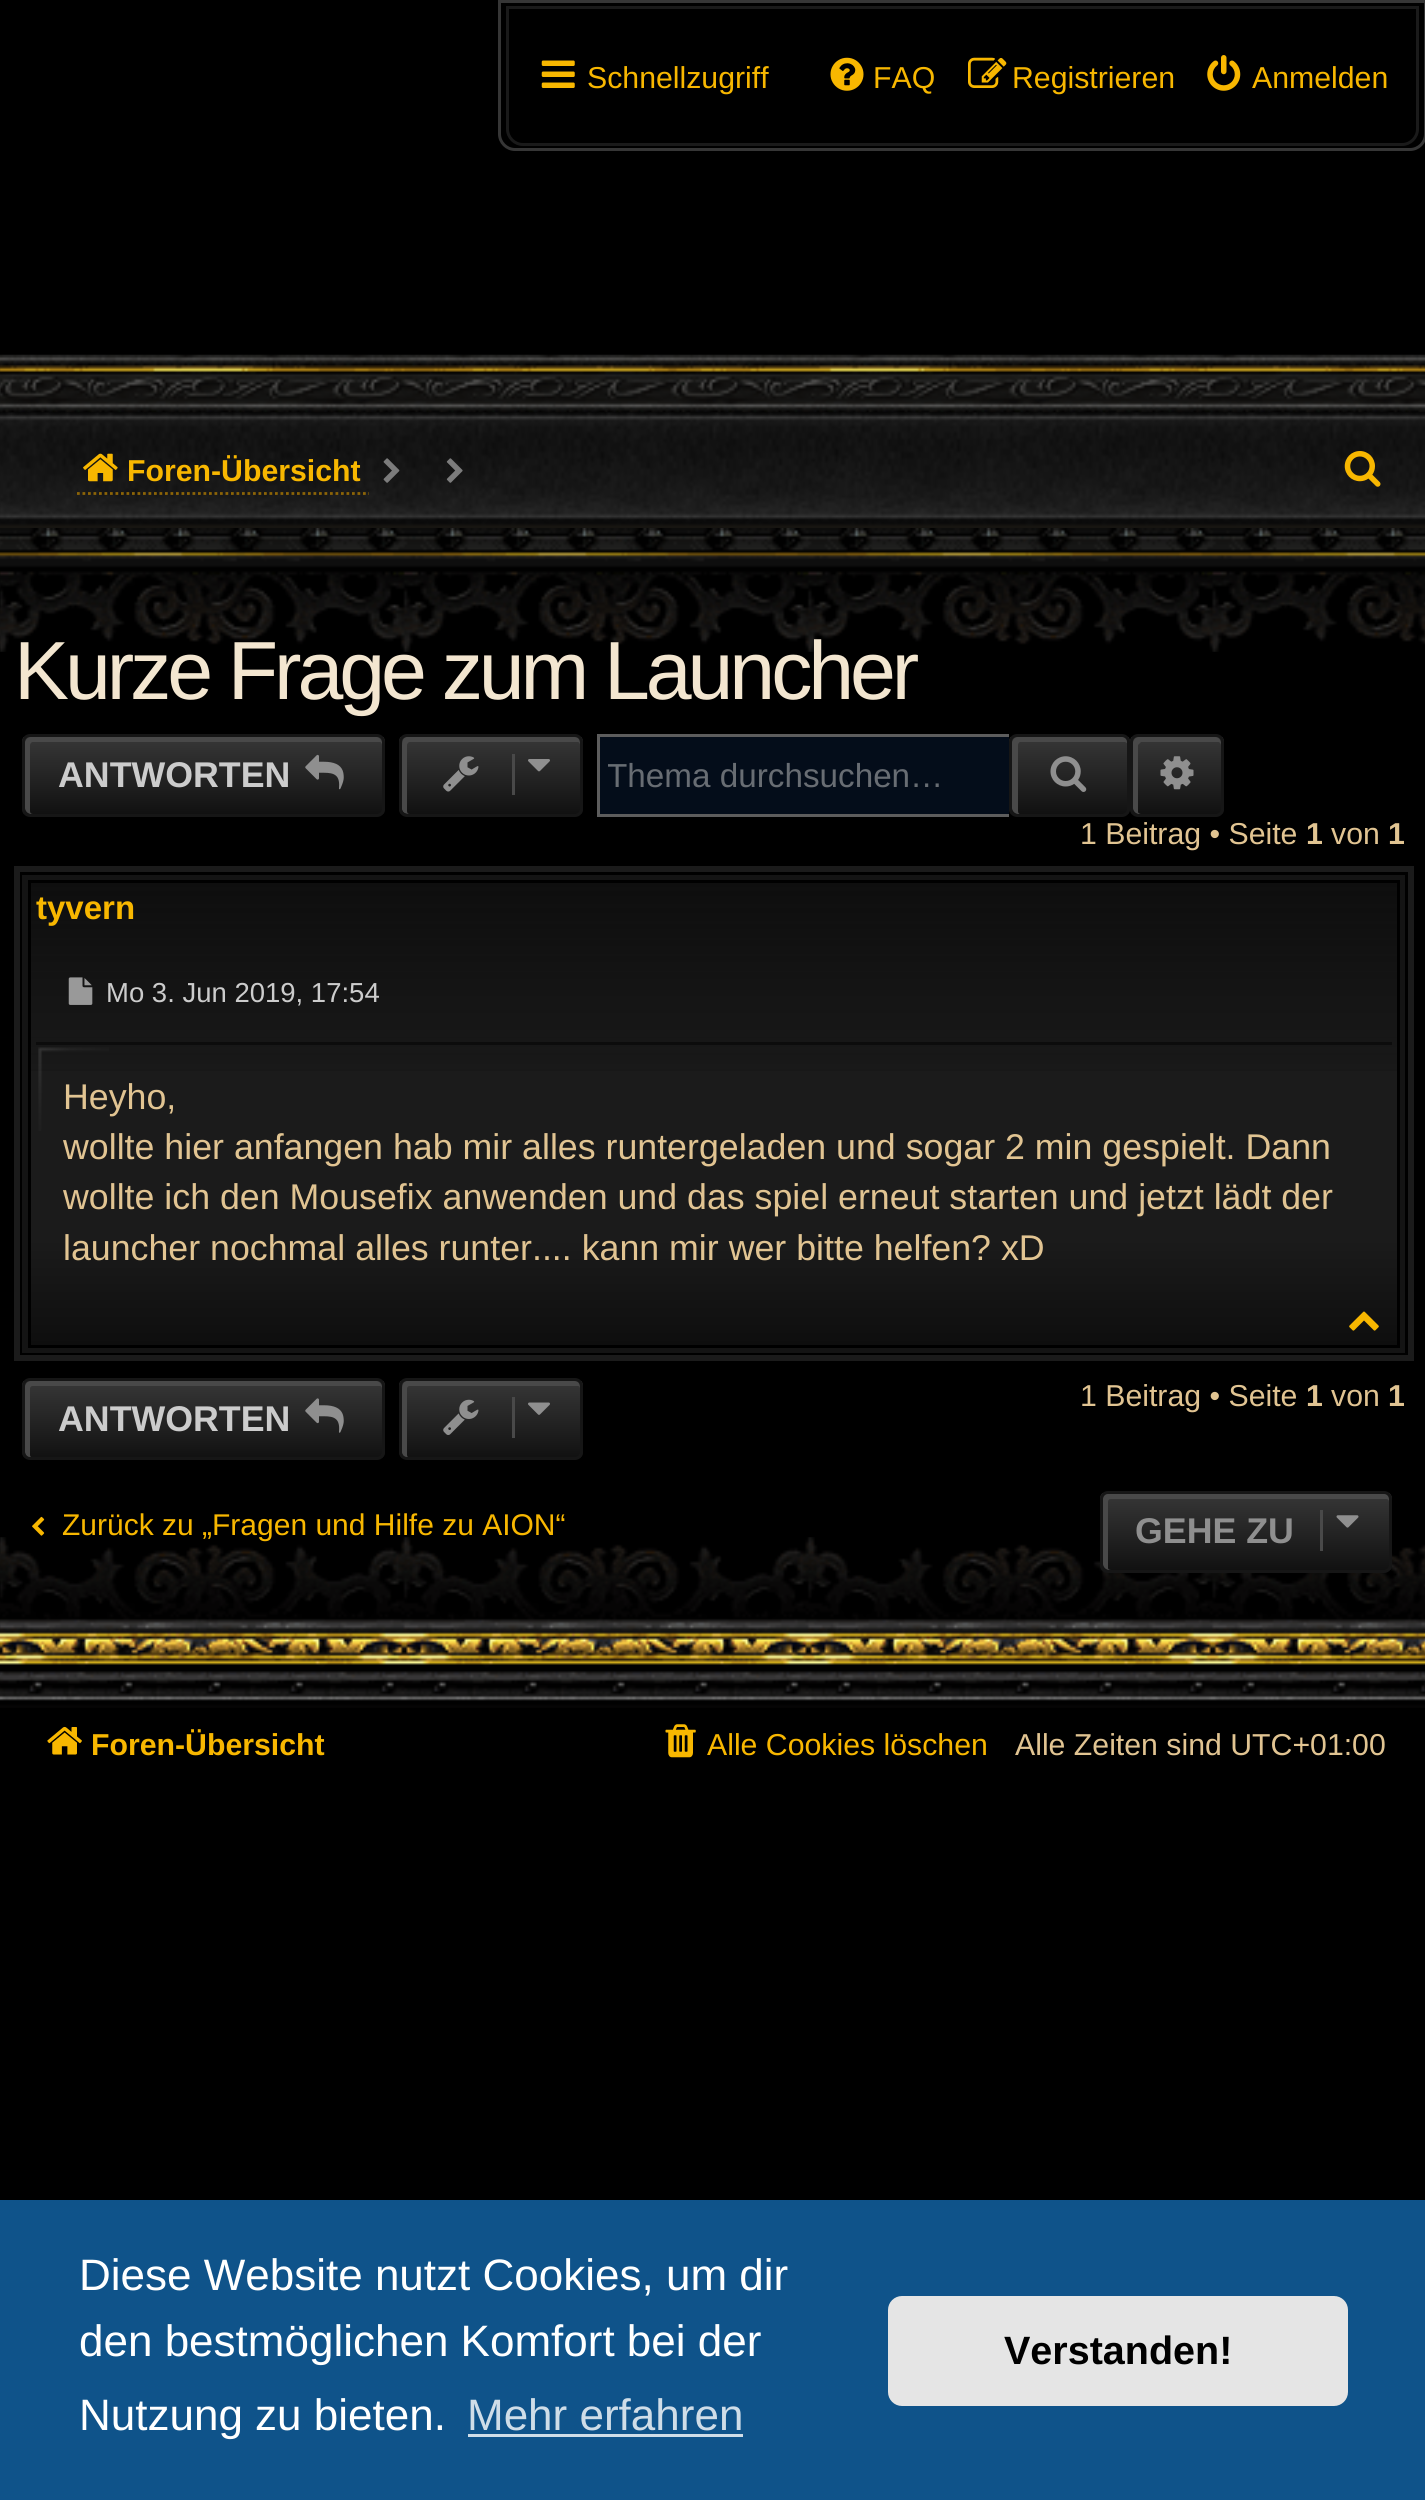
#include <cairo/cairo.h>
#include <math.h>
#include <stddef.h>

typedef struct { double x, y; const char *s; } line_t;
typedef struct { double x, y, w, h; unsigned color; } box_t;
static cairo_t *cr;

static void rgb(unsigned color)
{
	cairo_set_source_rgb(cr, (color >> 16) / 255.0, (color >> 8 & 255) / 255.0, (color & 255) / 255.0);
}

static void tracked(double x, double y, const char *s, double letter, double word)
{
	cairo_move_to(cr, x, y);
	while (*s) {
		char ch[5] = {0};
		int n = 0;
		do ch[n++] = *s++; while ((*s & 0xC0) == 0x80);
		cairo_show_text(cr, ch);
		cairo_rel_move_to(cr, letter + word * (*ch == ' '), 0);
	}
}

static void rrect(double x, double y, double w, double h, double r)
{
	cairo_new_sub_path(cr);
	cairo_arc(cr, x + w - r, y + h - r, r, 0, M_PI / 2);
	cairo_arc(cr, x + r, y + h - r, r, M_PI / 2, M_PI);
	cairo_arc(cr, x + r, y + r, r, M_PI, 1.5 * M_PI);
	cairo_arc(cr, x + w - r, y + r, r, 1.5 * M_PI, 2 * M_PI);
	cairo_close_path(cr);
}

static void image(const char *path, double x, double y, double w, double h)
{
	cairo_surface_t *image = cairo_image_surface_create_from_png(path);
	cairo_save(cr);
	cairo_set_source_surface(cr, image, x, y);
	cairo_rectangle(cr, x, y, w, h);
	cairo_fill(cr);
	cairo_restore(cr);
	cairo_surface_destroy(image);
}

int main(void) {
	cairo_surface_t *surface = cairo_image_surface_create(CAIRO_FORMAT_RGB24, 1425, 2500);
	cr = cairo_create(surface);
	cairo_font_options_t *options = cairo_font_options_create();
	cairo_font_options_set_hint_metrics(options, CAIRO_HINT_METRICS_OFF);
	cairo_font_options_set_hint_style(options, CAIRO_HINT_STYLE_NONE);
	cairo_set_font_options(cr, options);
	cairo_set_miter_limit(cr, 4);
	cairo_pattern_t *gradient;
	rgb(0x000000);
	cairo_paint(cr);
	cairo_new_path(cr);
	cairo_move_to(cr, 499.5, 1.5);
	cairo_line_to(cr, 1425.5, 1.5);
	cairo_line_to(cr, 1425.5, 134);
	cairo_curve_to(cr, 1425.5, 142.5, 1418.5, 149.5, 1410, 149.5);
	cairo_line_to(cr, 515, 149.5);
	cairo_curve_to(cr, 506.5, 149.5, 499.5, 142.5, 499.5, 134);
	cairo_close_path(cr);
	rgb(0x363636);
	cairo_set_line_width(cr, 3);
	cairo_stroke(cr);
	cairo_new_path(cr);
	cairo_move_to(cr, 507.5, 7.5);
	cairo_line_to(cr, 1417.5, 7.5);
	cairo_line_to(cr, 1417.5, 129);
	cairo_curve_to(cr, 1417.5, 137.5, 1410.5, 144.5, 1402, 144.5);
	cairo_line_to(cr, 523, 144.5);
	cairo_curve_to(cr, 514.5, 144.5, 507.5, 137.5, 507.5, 129);
	cairo_close_path(cr);
	rgb(0x1a1a1a);
	cairo_stroke(cr);
	image("img/1.png", 541, 60, 34, 28);
	image("img/2.png", 830, 57, 34, 34);
	image("img/3.png", 968, 57, 39, 31);
	image("img/4.png", 1207, 55, 34, 36);
	image("img/5.png", 0, 354, 1425, 59);
	image("img/6.png", 0, 412, 1425, 116);
	image("img/7.png", 83, 453, 35, 29);
	cairo_save(cr);
	cairo_rectangle(cr, 69, 426, 300, 88);
	cairo_clip(cr);
	cairo_new_path(cr);
	cairo_move_to(cr, 77, 493.5);
	cairo_line_to(cr, 377, 493.5);
	rgb(0x8c6407);
	cairo_set_line_width(cr, 2.8);
	cairo_set_dash(cr, (double[]){2.75, 2.75}, 2, 0);
	cairo_stroke(cr);
	cairo_restore(cr);
	image("img/8.png", 383, 458, 17, 25);
	image("img/9.png", 446, 458, 17, 25);
	image("img/10.png", 1344, 451, 37, 36);
	image("img/11.png", 0, 528, 1425, 1180);
	cairo_save(cr);
	rrect(22, 734, 363, 83, 8);
	cairo_clip(cr);
	gradient = cairo_pattern_create_linear(204, 737, 204, 814);
	cairo_pattern_add_color_stop_rgba(gradient, 0, 0.216, 0.216, 0.216, 1);
	cairo_pattern_add_color_stop_rgba(gradient, 1, 0.067, 0.067, 0.067, 1);
	cairo_set_source(cr, gradient);
	cairo_pattern_destroy(gradient);
	cairo_rectangle(cr, 22, 737, 363, 77);
	cairo_fill(cr);
	cairo_restore(cr);
	rgb(0x494949);
	cairo_new_path(cr);
	cairo_move_to(cr, 33, 742);
	cairo_line_to(cr, 380, 742);
	cairo_curve_to(cr, 381, 742, 382, 744, 382, 745);
	cairo_line_to(cr, 382, 743);
	cairo_curve_to(cr, 382, 740, 379, 737, 376, 737);
	cairo_line_to(cr, 31, 737);
	cairo_curve_to(cr, 28, 737, 25, 740, 25, 743);
	cairo_line_to(cr, 25, 808);
	cairo_curve_to(cr, 25, 811, 28, 814, 31, 814);
	cairo_line_to(cr, 33, 814);
	cairo_curve_to(cr, 31, 814, 30, 813, 30, 811);
	cairo_line_to(cr, 30, 745);
	cairo_curve_to(cr, 30, 744, 31, 742, 33, 742);
	cairo_close_path(cr);
	cairo_fill(cr);
	rrect(23.5, 735.5, 360, 80, 6.5);
	rgb(0x161616);
	cairo_stroke(cr);
	image("img/12.png", 305, 754, 39, 36);
	cairo_save(cr);
	rrect(399, 734, 184, 83, 8);
	cairo_clip(cr);
	gradient = cairo_pattern_create_linear(491, 737, 491, 814);
	cairo_pattern_add_color_stop_rgba(gradient, 0, 0.216, 0.216, 0.216, 1);
	cairo_pattern_add_color_stop_rgba(gradient, 1, 0.067, 0.067, 0.067, 1);
	cairo_set_source(cr, gradient);
	cairo_pattern_destroy(gradient);
	cairo_rectangle(cr, 399, 737, 184, 77);
	cairo_fill(cr);
	cairo_restore(cr);
	rgb(0x494949);
	cairo_new_path(cr);
	cairo_move_to(cr, 410, 742);
	cairo_line_to(cr, 578, 742);
	cairo_curve_to(cr, 579, 742, 580, 744, 580, 745);
	cairo_curve_to(cr, 580, 741, 579, 737, 574, 737);
	cairo_line_to(cr, 436, 737);
	cairo_curve_to(cr, 398, 737, 402, 730, 402, 765);
	cairo_line_to(cr, 402, 797);
	cairo_curve_to(cr, 402, 806, 399, 814, 410, 814);
	cairo_curve_to(cr, 408, 814, 407, 813, 407, 811);
	cairo_line_to(cr, 407, 745);
	cairo_curve_to(cr, 407, 744, 408, 742, 410, 742);
	cairo_close_path(cr);
	cairo_fill(cr);
	rrect(400.5, 735.5, 181, 80, 6.5);
	rgb(0x161616);
	cairo_stroke(cr);
	image("img/13.png", 443, 756, 36, 36);
	rgb(0x494949);
	cairo_rectangle(cr, 512, 754, 3, 41);
	cairo_fill(cr);
	image("img/14.png", 528, 759, 22, 13);
	{
		static const box_t items[] = {
			{600, 737, 409, 77, 0x040d1a},
			{597, 734, 412, 3, 0x5d5d5d},
			{597, 814, 412, 3, 0x5d5d5d},
			{597, 734, 3, 83, 0x5d5d5d},
		};
		for (size_t i = 0; i < sizeof items / sizeof *items; i++) {
			rgb(items[i].color);
			cairo_rectangle(cr, items[i].x, items[i].y, items[i].w, items[i].h);
			cairo_fill(cr);
		}
	}
	cairo_save(cr);
	rrect(1009, 734, 121, 83, 8);
	cairo_clip(cr);
	gradient = cairo_pattern_create_linear(1070, 737, 1070, 814);
	cairo_pattern_add_color_stop_rgba(gradient, 0, 0.216, 0.216, 0.216, 1);
	cairo_pattern_add_color_stop_rgba(gradient, 1, 0.067, 0.067, 0.067, 1);
	cairo_set_source(cr, gradient);
	cairo_pattern_destroy(gradient);
	cairo_rectangle(cr, 1009, 737, 121, 77);
	cairo_fill(cr);
	cairo_restore(cr);
	rgb(0x494949);
	cairo_new_path(cr);
	cairo_move_to(cr, 1020, 742);
	cairo_line_to(cr, 1125, 742);
	cairo_line_to(cr, 1127, 743);
	cairo_line_to(cr, 1128, 745);
	cairo_line_to(cr, 1128, 743);
	cairo_curve_to(cr, 1128, 740, 1125, 737, 1122, 737);
	cairo_line_to(cr, 1018, 737);
	cairo_curve_to(cr, 1015, 737, 1012, 740, 1012, 743);
	cairo_line_to(cr, 1012, 808);
	cairo_curve_to(cr, 1012, 811, 1015, 814, 1018, 814);
	cairo_line_to(cr, 1020, 814);
	cairo_curve_to(cr, 1019, 814, 1018, 813, 1018, 811);
	cairo_line_to(cr, 1018, 745);
	cairo_curve_to(cr, 1018, 744, 1019, 742, 1020, 742);
	cairo_close_path(cr);
	cairo_fill(cr);
	rrect(1010.5, 735.5, 118, 80, 6.5);
	rgb(0x161616);
	cairo_stroke(cr);
	image("img/15.png", 1050, 756, 37, 36);
	cairo_save(cr);
	rrect(1130, 734, 94, 83, 8);
	cairo_clip(cr);
	gradient = cairo_pattern_create_linear(1177, 737, 1177, 814);
	cairo_pattern_add_color_stop_rgba(gradient, 0, 0.216, 0.216, 0.216, 1);
	cairo_pattern_add_color_stop_rgba(gradient, 1, 0.067, 0.067, 0.067, 1);
	cairo_set_source(cr, gradient);
	cairo_pattern_destroy(gradient);
	cairo_rectangle(cr, 1130, 737, 94, 77);
	cairo_fill(cr);
	cairo_restore(cr);
	rgb(0x494949);
	cairo_new_path(cr);
	cairo_move_to(cr, 1141, 742);
	cairo_line_to(cr, 1218, 742);
	cairo_curve_to(cr, 1220, 742, 1221, 744, 1221, 745);
	cairo_line_to(cr, 1221, 743);
	cairo_curve_to(cr, 1221, 740, 1218, 737, 1215, 737);
	cairo_line_to(cr, 1139, 737);
	cairo_curve_to(cr, 1136, 737, 1133, 740, 1133, 743);
	cairo_line_to(cr, 1133, 808);
	cairo_curve_to(cr, 1133, 811, 1136, 814, 1139, 814);
	cairo_line_to(cr, 1141, 814);
	cairo_curve_to(cr, 1140, 814, 1138, 813, 1138, 812);
	cairo_line_to(cr, 1138, 745);
	cairo_line_to(cr, 1139, 744);
	cairo_close_path(cr);
	cairo_fill(cr);
	rrect(1131.5, 735.5, 91, 80, 6.5);
	rgb(0x161616);
	cairo_stroke(cr);
	image("img/16.png", 1160, 756, 34, 34);
	rgb(0x141414);
	cairo_rectangle(cr, 22, 875, 1383, 478);
	cairo_fill(cr);
	cairo_rectangle(cr, 17, 869, 1394, 489);
	rgb(0x1b1b1b);
	cairo_set_line_width(cr, 6);
	cairo_stroke(cr);
	gradient = cairo_pattern_create_linear(714, 1345, 714, 883);
	cairo_pattern_add_color_stop_rgba(gradient, 0, 0.055, 0.055, 0.055, 1);
	cairo_pattern_add_color_stop_rgba(gradient, 0.23, 0.106, 0.106, 0.106, 1);
	cairo_set_source(cr, gradient);
	cairo_pattern_destroy(gradient);
	cairo_rectangle(cr, 31, 884, 1366, 461);
	cairo_fill(cr);
	gradient = cairo_pattern_create_linear(714, 883, 714, 1345);
	cairo_pattern_add_color_stop_rgba(gradient, 0, 0.055, 0.055, 0.055, 1);
	cairo_pattern_add_color_stop_rgba(gradient, 0.49, 0.055, 0.055, 0.055, 0);
	cairo_set_source(cr, gradient);
	cairo_pattern_destroy(gradient);
	cairo_rectangle(cr, 31, 883, 1366, 188);
	cairo_fill(cr);
	cairo_rectangle(cr, 29.5, 881.5, 1369, 465);
	rgb(0x000000);
	cairo_set_line_width(cr, 3);
	cairo_stroke(cr);
	image("img/17.png", 68, 977, 25, 28);
	image("img/18.png", 38, 1047, 71, 84);
	rgb(0x0c0c0c);
	cairo_rectangle(cr, 36, 1042, 1356, 3);
	cairo_fill(cr);
	image("img/19.png", 1349, 1311, 30, 20);
	cairo_save(cr);
	rrect(399, 1378, 184, 82, 8);
	cairo_clip(cr);
	gradient = cairo_pattern_create_linear(491, 1381, 491, 1458);
	cairo_pattern_add_color_stop_rgba(gradient, 0, 0.216, 0.216, 0.216, 1);
	cairo_pattern_add_color_stop_rgba(gradient, 1, 0.067, 0.067, 0.067, 1);
	cairo_set_source(cr, gradient);
	cairo_pattern_destroy(gradient);
	cairo_rectangle(cr, 399, 1381, 184, 77);
	cairo_fill(cr);
	cairo_restore(cr);
	rgb(0x494949);
	cairo_new_path(cr);
	cairo_move_to(cr, 410, 1386);
	cairo_line_to(cr, 578, 1386);
	cairo_curve_to(cr, 579, 1386, 580, 1387, 580, 1389);
	cairo_curve_to(cr, 580, 1385, 579, 1381, 574, 1381);
	cairo_line_to(cr, 436, 1381);
	cairo_curve_to(cr, 398, 1381, 402, 1374, 402, 1409);
	cairo_line_to(cr, 402, 1441);
	cairo_curve_to(cr, 402, 1450, 399, 1458, 410, 1458);
	cairo_curve_to(cr, 408, 1458, 407, 1456, 407, 1455);
	cairo_line_to(cr, 407, 1389);
	cairo_curve_to(cr, 407, 1387, 408, 1386, 410, 1386);
	cairo_close_path(cr);
	cairo_fill(cr);
	rrect(400.5, 1379.5, 181, 79, 6.5);
	rgb(0x161616);
	cairo_stroke(cr);
	image("img/20.png", 443, 1399, 36, 36);
	rgb(0x494949);
	cairo_rectangle(cr, 512, 1397, 3, 41);
	cairo_fill(cr);
	image("img/21.png", 528, 1402, 22, 13);
	cairo_save(cr);
	rrect(22, 1378, 363, 82, 8);
	cairo_clip(cr);
	gradient = cairo_pattern_create_linear(204, 1381, 204, 1458);
	cairo_pattern_add_color_stop_rgba(gradient, 0, 0.216, 0.216, 0.216, 1);
	cairo_pattern_add_color_stop_rgba(gradient, 1, 0.067, 0.067, 0.067, 1);
	cairo_set_source(cr, gradient);
	cairo_pattern_destroy(gradient);
	cairo_rectangle(cr, 22, 1381, 363, 77);
	cairo_fill(cr);
	cairo_restore(cr);
	cairo_new_path(cr);
	cairo_move_to(cr, 33, 1386);
	cairo_line_to(cr, 380, 1386);
	cairo_curve_to(cr, 381, 1386, 382, 1387, 382, 1389);
	cairo_line_to(cr, 382, 1387);
	cairo_curve_to(cr, 382, 1384, 379, 1381, 376, 1381);
	cairo_line_to(cr, 31, 1381);
	cairo_curve_to(cr, 28, 1381, 25, 1384, 25, 1387);
	cairo_line_to(cr, 25, 1452);
	cairo_curve_to(cr, 25, 1455, 28, 1458, 31, 1458);
	cairo_line_to(cr, 33, 1458);
	cairo_curve_to(cr, 31, 1458, 30, 1456, 30, 1455);
	cairo_line_to(cr, 30, 1389);
	cairo_curve_to(cr, 30, 1387, 31, 1386, 33, 1386);
	cairo_close_path(cr);
	cairo_fill(cr);
	rrect(23.5, 1379.5, 360, 79, 6.5);
	rgb(0x161616);
	cairo_stroke(cr);
	image("img/22.png", 305, 1398, 39, 35);
	image("img/23.png", 32, 1516, 13, 20);
	cairo_save(cr);
	rrect(1100, 1491, 292, 82, 8);
	cairo_clip(cr);
	gradient = cairo_pattern_create_linear(1246, 1493, 1246, 1570);
	cairo_pattern_add_color_stop_rgba(gradient, 0, 0.216, 0.216, 0.216, 1);
	cairo_pattern_add_color_stop_rgba(gradient, 1, 0.067, 0.067, 0.067, 1);
	cairo_set_source(cr, gradient);
	cairo_pattern_destroy(gradient);
	cairo_rectangle(cr, 1100, 1493, 292, 77);
	cairo_fill(cr);
	cairo_restore(cr);
	rgb(0x494949);
	cairo_new_path(cr);
	cairo_move_to(cr, 1111, 1499);
	cairo_line_to(cr, 1386, 1499);
	cairo_curve_to(cr, 1388, 1499, 1389, 1500, 1389, 1502);
	cairo_line_to(cr, 1389, 1499);
	cairo_curve_to(cr, 1389, 1496, 1386, 1493, 1383, 1493);
	cairo_line_to(cr, 1109, 1493);
	cairo_curve_to(cr, 1106, 1493, 1103, 1496, 1103, 1499);
	cairo_line_to(cr, 1103, 1564);
	cairo_curve_to(cr, 1103, 1567, 1106, 1570, 1109, 1570);
	cairo_line_to(cr, 1111, 1570);
	cairo_curve_to(cr, 1109, 1570, 1108, 1569, 1108, 1568);
	cairo_line_to(cr, 1108, 1502);
	cairo_curve_to(cr, 1108, 1500, 1109, 1499, 1111, 1499);
	cairo_close_path(cr);
	cairo_fill(cr);
	rrect(1101.5, 1492.5, 289, 79, 6.5);
	rgb(0x161616);
	cairo_stroke(cr);
	rgb(0x494949);
	cairo_rectangle(cr, 1320, 1510, 3, 41);
	cairo_fill(cr);
	image("img/24.png", 1336, 1515, 23, 13);
	image("img/25.png", 47, 1726, 35, 29);
	image("img/26.png", 665, 1724, 31, 34);
	rgb(0x0f538a);
	cairo_rectangle(cr, 0, 2200, 1425, 300);
	cairo_fill(cr);
	rgb(0xcfdde8);
	cairo_rectangle(cr, 468, 2434, 275, 3);
	cairo_fill(cr);
	rgb(0xe5e5e5);
	rrect(888, 2296, 460, 110, 14);
	cairo_fill(cr);
	cairo_select_font_face(cr, "Liberation Sans", CAIRO_FONT_SLANT_NORMAL, CAIRO_FONT_WEIGHT_NORMAL);
	cairo_set_font_size(cr, 30.25);
	rgb(0xf8b700);
	{
		static const line_t items[] = {
			{587, 88, "Schnellzugriff"},
			{873, 88, "FAQ"},
			{1012, 88, "Registrieren"},
			{1252, 88, "Anmelden"},
		};
		for (size_t i = 0; i < sizeof items / sizeof *items; i++) {
			cairo_move_to(cr, items[i].x, items[i].y);
			cairo_show_text(cr, items[i].s);
		}
	}
	cairo_select_font_face(cr, "Liberation Sans", CAIRO_FONT_SLANT_NORMAL, CAIRO_FONT_WEIGHT_BOLD);
	cairo_move_to(cr, 127, 481);
	cairo_show_text(cr, "Foren-Übersicht");
	cairo_select_font_face(cr, "Liberation Sans", CAIRO_FONT_SLANT_NORMAL, CAIRO_FONT_WEIGHT_NORMAL);
	cairo_set_font_size(cr, 82.5);
	rgb(0xf3e6d0);
	tracked(14, 699, "Kurze Frage zum Launcher", -4.1, 0);
	cairo_select_font_face(cr, "Liberation Sans", CAIRO_FONT_SLANT_NORMAL, CAIRO_FONT_WEIGHT_BOLD);
	cairo_set_font_size(cr, 35.75);
	rgb(0xcccccc);
	cairo_move_to(cr, 58, 787);
	cairo_show_text(cr, "ANTWORTEN");
	cairo_save(cr);
	cairo_rectangle(cr, 608, 756, 382, 39);
	cairo_clip(cr);
	cairo_select_font_face(cr, "Liberation Sans", CAIRO_FONT_SLANT_NORMAL, CAIRO_FONT_WEIGHT_NORMAL);
	cairo_set_font_size(cr, 33.25);
	rgb(0x686d73);
	cairo_move_to(cr, 607, 787);
	cairo_show_text(cr, "Thema durchsuchen…");
	cairo_restore(cr);
	cairo_select_font_face(cr, "Liberation Sans", CAIRO_FONT_SLANT_NORMAL, CAIRO_FONT_WEIGHT_NORMAL);
	cairo_set_font_size(cr, 30.25);
	rgb(0xe1c492);
	cairo_move_to(cr, 1080, 844);
	cairo_show_text(cr, "1 Beitrag • Seite");
	cairo_select_font_face(cr, "Liberation Sans", CAIRO_FONT_SLANT_NORMAL, CAIRO_FONT_WEIGHT_BOLD);
	cairo_move_to(cr, 1306, 844);
	cairo_show_text(cr, "1");
	cairo_select_font_face(cr, "Liberation Sans", CAIRO_FONT_SLANT_NORMAL, CAIRO_FONT_WEIGHT_NORMAL);
	cairo_move_to(cr, 1331, 844);
	cairo_show_text(cr, "von");
	cairo_select_font_face(cr, "Liberation Sans", CAIRO_FONT_SLANT_NORMAL, CAIRO_FONT_WEIGHT_BOLD);
	cairo_move_to(cr, 1388, 844);
	cairo_show_text(cr, "1");
	cairo_set_font_size(cr, 33);
	rgb(0xf8b700);
	cairo_move_to(cr, 36, 919);
	cairo_show_text(cr, "tyvern");
	cairo_select_font_face(cr, "Liberation Sans", CAIRO_FONT_SLANT_NORMAL, CAIRO_FONT_WEIGHT_NORMAL);
	cairo_set_font_size(cr, 27.5);
	rgb(0xcccccc);
	cairo_move_to(cr, 106, 1002);
	cairo_show_text(cr, "Mo 3. Jun 2019, 17:54");
	cairo_set_font_size(cr, 35.75);
	rgb(0xe1c492);
	{
		static const line_t items[] = {
			{63, 1109, "Heyho,"},
			{63, 1159, "wollte hier anfangen hab mir alles runtergeladen und sogar 2 min gespielt. Dann"},
			{63, 1209, "wollte ich den Mousefix anwenden und das spiel erneut starten und jetzt lädt der"},
			{63, 1260, "launcher nochmal alles runter.... kann mir wer bitte helfen? xD"},
		};
		for (size_t i = 0; i < sizeof items / sizeof *items; i++) {
			cairo_move_to(cr, items[i].x, items[i].y);
			cairo_show_text(cr, items[i].s);
		}
	}
	cairo_set_font_size(cr, 30.25);
	cairo_move_to(cr, 1080, 1406);
	cairo_show_text(cr, "1 Beitrag • Seite");
	cairo_select_font_face(cr, "Liberation Sans", CAIRO_FONT_SLANT_NORMAL, CAIRO_FONT_WEIGHT_BOLD);
	cairo_move_to(cr, 1306, 1406);
	cairo_show_text(cr, "1");
	cairo_select_font_face(cr, "Liberation Sans", CAIRO_FONT_SLANT_NORMAL, CAIRO_FONT_WEIGHT_NORMAL);
	cairo_move_to(cr, 1331, 1406);
	cairo_show_text(cr, "von");
	cairo_select_font_face(cr, "Liberation Sans", CAIRO_FONT_SLANT_NORMAL, CAIRO_FONT_WEIGHT_BOLD);
	cairo_move_to(cr, 1388, 1406);
	cairo_show_text(cr, "1");
	cairo_set_font_size(cr, 35.75);
	rgb(0xcccccc);
	cairo_move_to(cr, 58, 1431);
	cairo_show_text(cr, "ANTWORTEN");
	cairo_select_font_face(cr, "Liberation Sans", CAIRO_FONT_SLANT_NORMAL, CAIRO_FONT_WEIGHT_NORMAL);
	cairo_set_font_size(cr, 30);
	rgb(0xf8b700);
	cairo_move_to(cr, 62, 1535);
	cairo_show_text(cr, "Zurück zu „Fragen und Hilfe zu AION“");
	cairo_select_font_face(cr, "Liberation Sans", CAIRO_FONT_SLANT_NORMAL, CAIRO_FONT_WEIGHT_BOLD);
	cairo_set_font_size(cr, 35.75);
	rgb(0x8f8f8f);
	cairo_move_to(cr, 1135, 1543);
	cairo_show_text(cr, "GEHE ZU");
	cairo_set_font_size(cr, 30.25);
	rgb(0xf8b700);
	cairo_move_to(cr, 91, 1755);
	cairo_show_text(cr, "Foren-Übersicht");
	cairo_select_font_face(cr, "Liberation Sans", CAIRO_FONT_SLANT_NORMAL, CAIRO_FONT_WEIGHT_NORMAL);
	cairo_move_to(cr, 707, 1755);
	cairo_show_text(cr, "Alle Cookies löschen");
	rgb(0xe1c492);
	cairo_move_to(cr, 1015, 1755);
	cairo_show_text(cr, "Alle Zeiten sind UTC+01:00");
	cairo_set_font_size(cr, 44);
	rgb(0xffffff);
	{
		static const line_t items[] = {
			{79, 2290, "Diese Website nutzt Cookies, um dir"},
			{79, 2356, "den bestmöglichen Komfort bei der"},
			{79, 2430, "Nutzung zu bieten."},
		};
		for (size_t i = 0; i < sizeof items / sizeof *items; i++) {
			cairo_move_to(cr, items[i].x, items[i].y);
			cairo_show_text(cr, items[i].s);
		}
	}
	rgb(0xcfdde8);
	cairo_move_to(cr, 467, 2430);
	cairo_show_text(cr, "Mehr erfahren");
	cairo_select_font_face(cr, "Liberation Sans", CAIRO_FONT_SLANT_NORMAL, CAIRO_FONT_WEIGHT_BOLD);
	cairo_set_font_size(cr, 39.5);
	rgb(0x000000);
	cairo_move_to(cr, 1004, 2364);
	cairo_show_text(cr, "Verstanden!");
	cairo_surface_write_to_png(surface, "page.png");
	cairo_font_options_destroy(options);
	cairo_destroy(cr);
	cairo_surface_destroy(surface);
	return 0;
}
